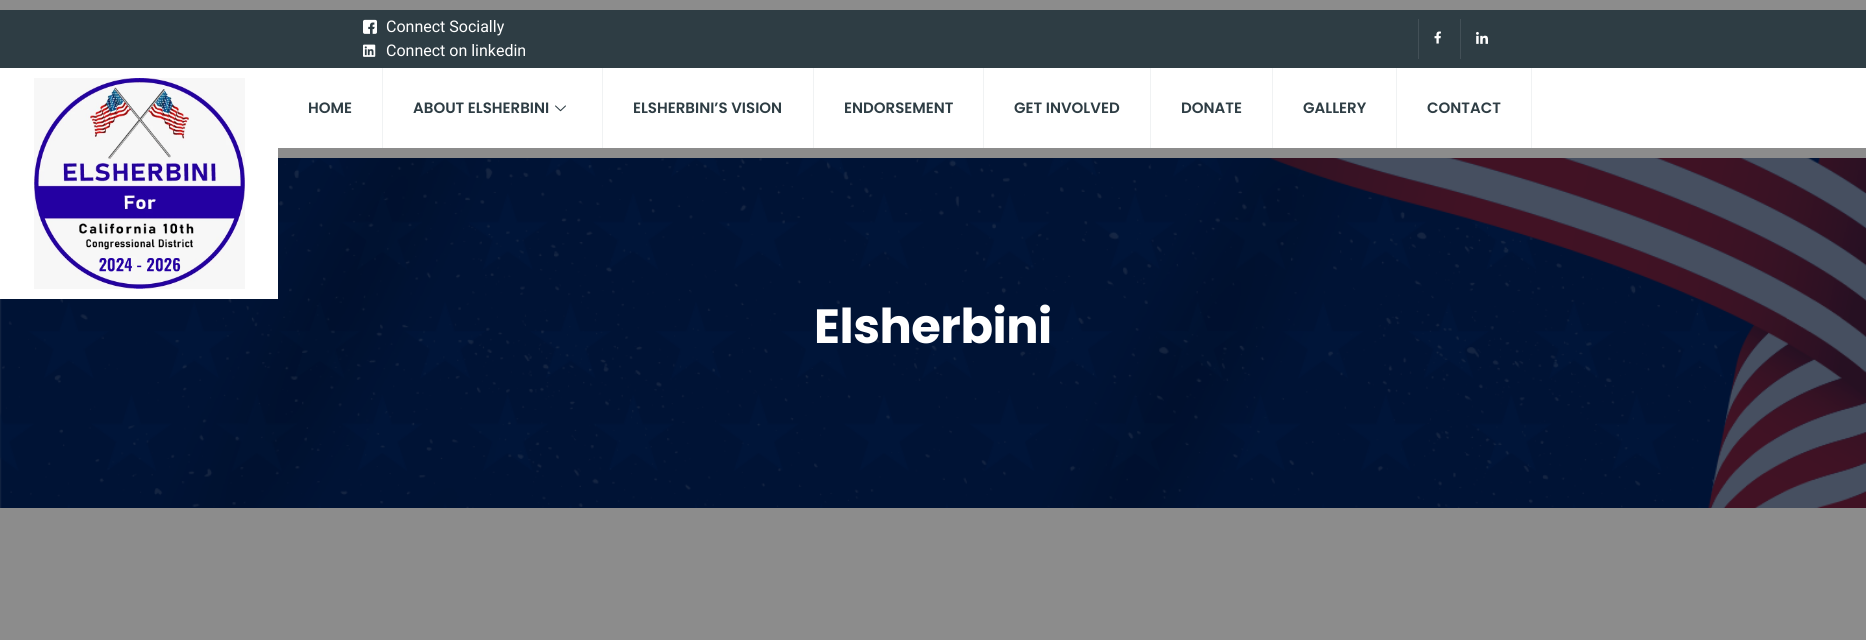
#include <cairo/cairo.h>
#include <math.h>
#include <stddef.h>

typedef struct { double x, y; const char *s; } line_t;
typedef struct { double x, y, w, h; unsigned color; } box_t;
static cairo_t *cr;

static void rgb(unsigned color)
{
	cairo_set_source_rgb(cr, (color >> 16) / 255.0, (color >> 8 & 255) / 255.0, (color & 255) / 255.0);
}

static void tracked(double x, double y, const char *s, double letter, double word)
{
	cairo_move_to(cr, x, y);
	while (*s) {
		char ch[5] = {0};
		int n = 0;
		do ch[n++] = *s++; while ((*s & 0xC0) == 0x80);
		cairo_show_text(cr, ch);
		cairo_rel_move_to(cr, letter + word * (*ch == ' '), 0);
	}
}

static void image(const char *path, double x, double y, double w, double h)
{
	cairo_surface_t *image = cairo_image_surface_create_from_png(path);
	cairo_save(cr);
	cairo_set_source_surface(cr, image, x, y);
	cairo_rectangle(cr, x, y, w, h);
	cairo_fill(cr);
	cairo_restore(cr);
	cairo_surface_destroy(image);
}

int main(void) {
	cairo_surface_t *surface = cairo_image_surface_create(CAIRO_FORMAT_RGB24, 1866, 640);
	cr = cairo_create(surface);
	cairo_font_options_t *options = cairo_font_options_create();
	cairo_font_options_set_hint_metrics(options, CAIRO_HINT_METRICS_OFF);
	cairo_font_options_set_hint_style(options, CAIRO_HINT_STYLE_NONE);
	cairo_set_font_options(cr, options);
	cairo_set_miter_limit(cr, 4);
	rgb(0x8c8c8c);
	cairo_paint(cr);
	rgb(0x2e3d44);
	cairo_rectangle(cr, 0, 10, 1866, 58);
	cairo_fill(cr);
	image("img/1.png", 363, 19, 14, 15);
	image("img/2.png", 363, 44, 13, 13);
	rgb(0x435057);
	cairo_rectangle(cr, 1418, 19, 1, 40);
	cairo_fill(cr);
	image("img/3.png", 1434, 31, 7, 13);
	cairo_rectangle(cr, 1460, 19, 1, 40);
	cairo_fill(cr);
	image("img/4.png", 1476, 31, 12, 13);
	rgb(0xffffff);
	cairo_rectangle(cr, 278, 68, 1588, 80);
	cairo_fill(cr);
	image("img/7.png", 0, 158, 1866, 350);
	cairo_rectangle(cr, 0, 68, 278, 231);
	cairo_fill(cr);
	image("img/5.png", 34, 78, 211, 211);
	rgb(0xf0f2f3);
	cairo_rectangle(cr, 382, 68, 1, 80);
	cairo_fill(cr);
	cairo_rectangle(cr, 602, 68, 1, 80);
	cairo_fill(cr);
	image("img/6.png", 555, 105, 11, 7);
	{
		static const box_t items[] = {
			{813, 68, 1, 80, 0xf0f2f3},
			{983, 68, 1, 80, 0xf0f2f3},
			{1150, 68, 1, 80, 0xf0f2f3},
			{1272, 68, 1, 80, 0xf0f2f3},
			{1396, 68, 1, 80, 0xf0f2f3},
			{1531, 68, 1, 80, 0xf0f2f3},
		};
		for (size_t i = 0; i < sizeof items / sizeof *items; i++) {
			rgb(items[i].color);
			cairo_rectangle(cr, items[i].x, items[i].y, items[i].w, items[i].h);
			cairo_fill(cr);
		}
	}
	cairo_select_font_face(cr, "Roboto", CAIRO_FONT_SLANT_NORMAL, CAIRO_FONT_WEIGHT_NORMAL);
	cairo_set_font_size(cr, 16);
	rgb(0xffffff);
	cairo_move_to(cr, 386, 32);
	cairo_show_text(cr, "Connect Socially");
	cairo_move_to(cr, 386, 56);
	cairo_show_text(cr, "Connect on linkedin");
	cairo_select_font_face(cr, "Poppins SemiBold", CAIRO_FONT_SLANT_NORMAL, CAIRO_FONT_WEIGHT_NORMAL);
	cairo_set_font_size(cr, 15);
	rgb(0x2e3d44);
	{
		static const line_t items[] = {
			{308, 113, "HOME"},
			{413, 113, "ABOUT ELSHERBINI"},
			{633, 113, "ELSHERBINI’S VISION"},
			{844, 113, "ENDORSEMENT"},
			{1014, 113, "GET INVOLVED"},
			{1181, 113, "DONATE"},
			{1303, 113, "GALLERY"},
			{1427, 113, "CONTACT"},
		};
		for (size_t i = 0; i < sizeof items / sizeof *items; i++) {
			cairo_move_to(cr, items[i].x, items[i].y);
			cairo_show_text(cr, items[i].s);
		}
	}
	cairo_select_font_face(cr, "Poppins", CAIRO_FONT_SLANT_NORMAL, CAIRO_FONT_WEIGHT_BOLD);
	cairo_set_font_size(cr, 48);
	rgb(0xffffff);
	tracked(814, 343, "Elsherbini", -0.5, 0);
	cairo_surface_write_to_png(surface, "page.png");
	cairo_font_options_destroy(options);
	cairo_destroy(cr);
	cairo_surface_destroy(surface);
	return 0;
}
